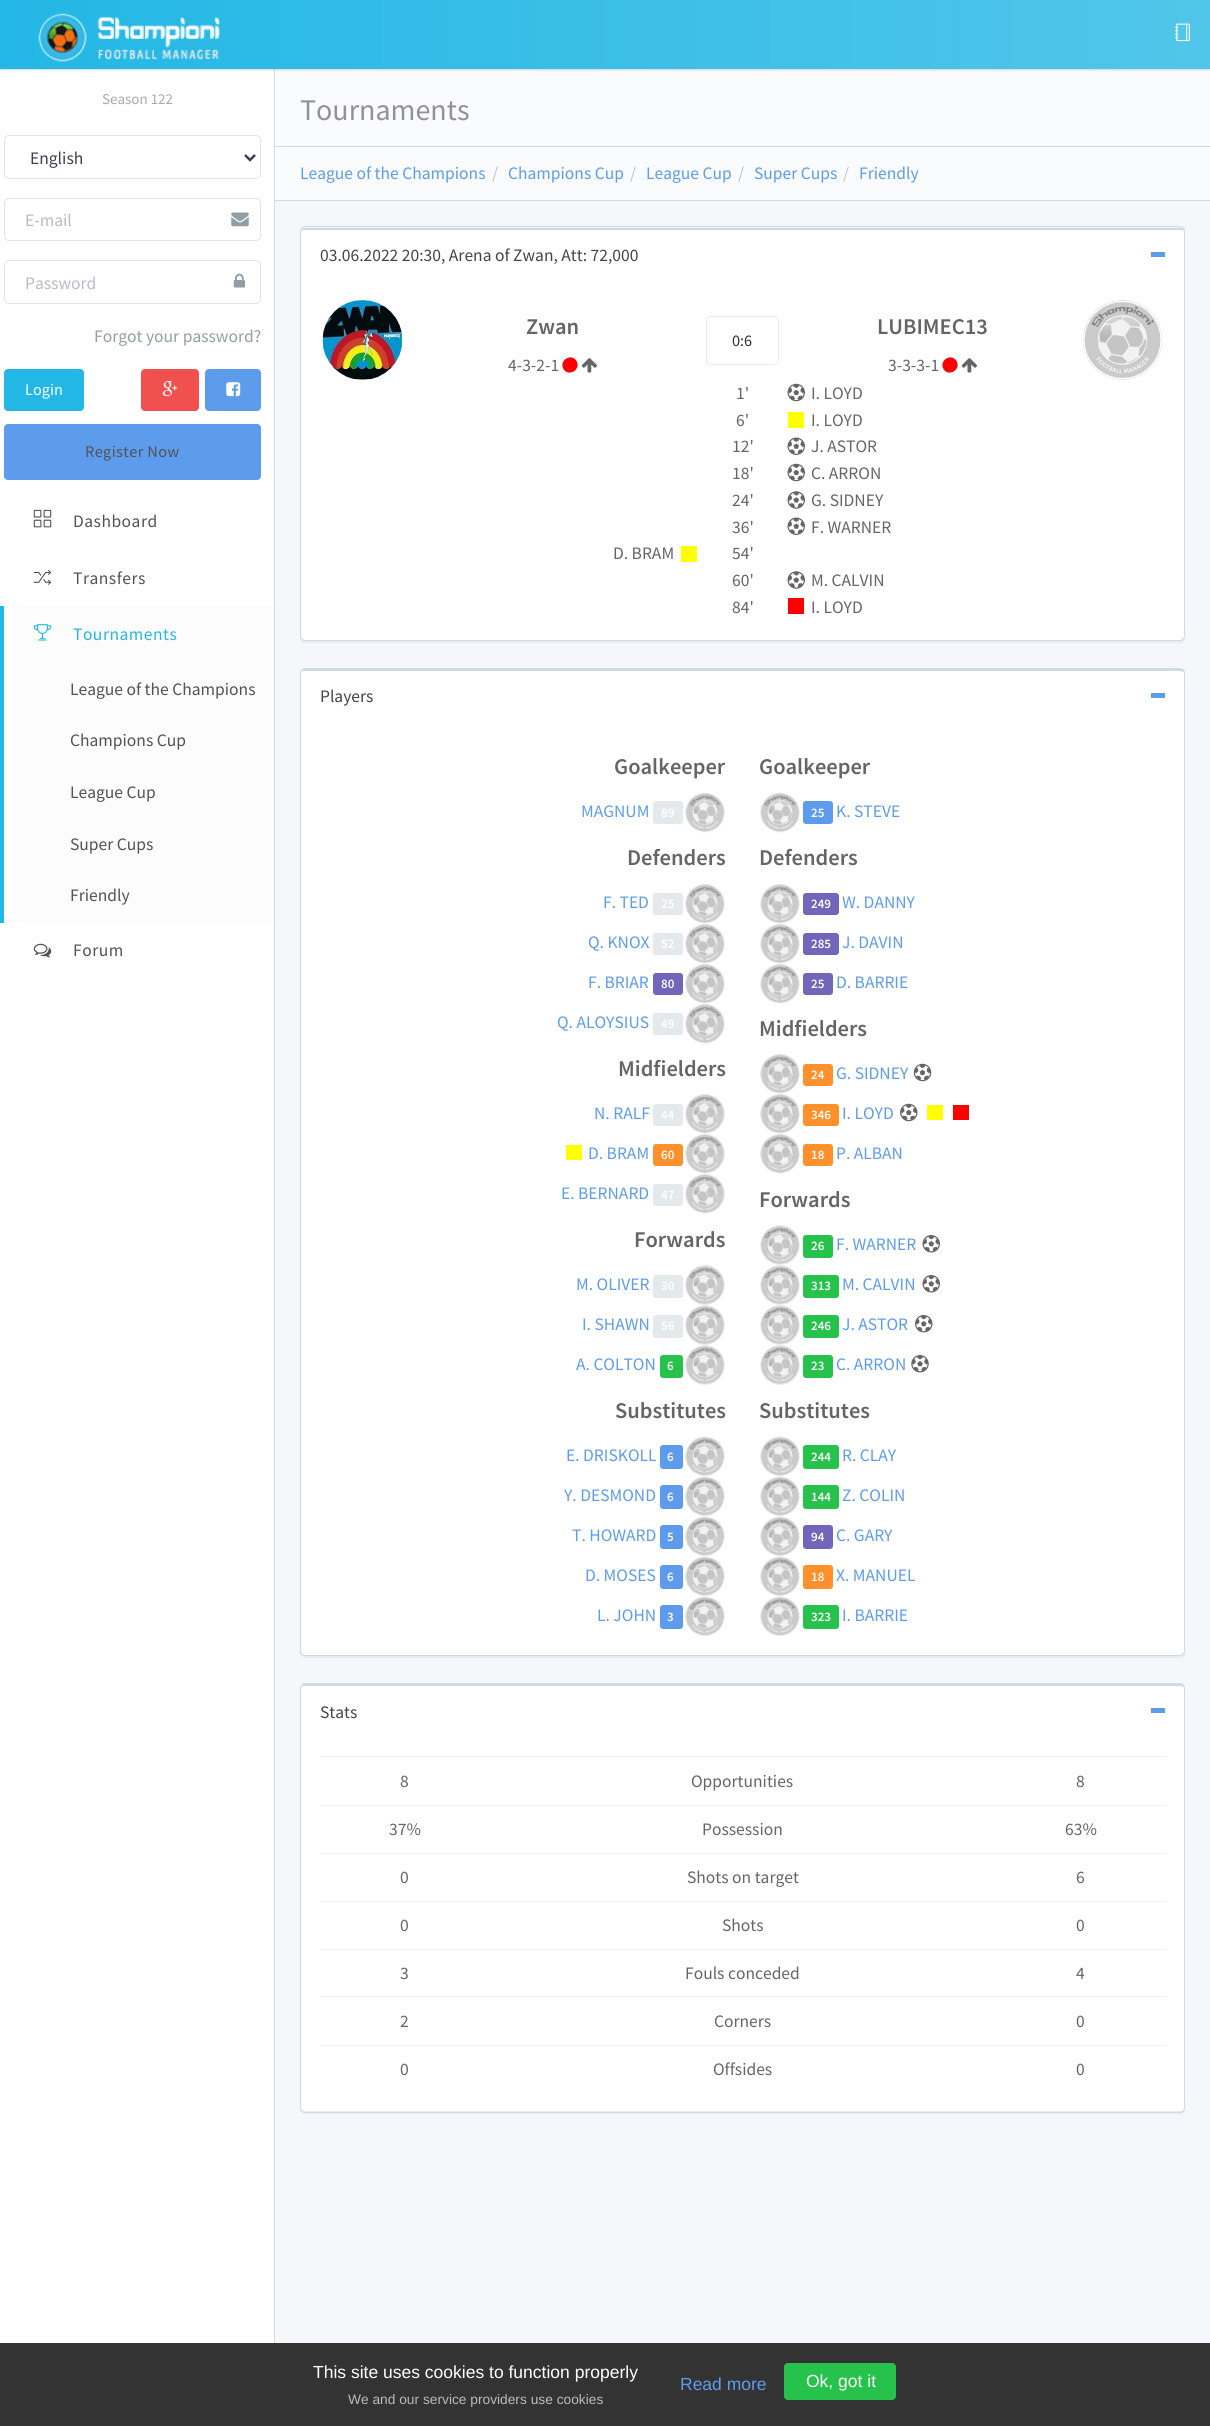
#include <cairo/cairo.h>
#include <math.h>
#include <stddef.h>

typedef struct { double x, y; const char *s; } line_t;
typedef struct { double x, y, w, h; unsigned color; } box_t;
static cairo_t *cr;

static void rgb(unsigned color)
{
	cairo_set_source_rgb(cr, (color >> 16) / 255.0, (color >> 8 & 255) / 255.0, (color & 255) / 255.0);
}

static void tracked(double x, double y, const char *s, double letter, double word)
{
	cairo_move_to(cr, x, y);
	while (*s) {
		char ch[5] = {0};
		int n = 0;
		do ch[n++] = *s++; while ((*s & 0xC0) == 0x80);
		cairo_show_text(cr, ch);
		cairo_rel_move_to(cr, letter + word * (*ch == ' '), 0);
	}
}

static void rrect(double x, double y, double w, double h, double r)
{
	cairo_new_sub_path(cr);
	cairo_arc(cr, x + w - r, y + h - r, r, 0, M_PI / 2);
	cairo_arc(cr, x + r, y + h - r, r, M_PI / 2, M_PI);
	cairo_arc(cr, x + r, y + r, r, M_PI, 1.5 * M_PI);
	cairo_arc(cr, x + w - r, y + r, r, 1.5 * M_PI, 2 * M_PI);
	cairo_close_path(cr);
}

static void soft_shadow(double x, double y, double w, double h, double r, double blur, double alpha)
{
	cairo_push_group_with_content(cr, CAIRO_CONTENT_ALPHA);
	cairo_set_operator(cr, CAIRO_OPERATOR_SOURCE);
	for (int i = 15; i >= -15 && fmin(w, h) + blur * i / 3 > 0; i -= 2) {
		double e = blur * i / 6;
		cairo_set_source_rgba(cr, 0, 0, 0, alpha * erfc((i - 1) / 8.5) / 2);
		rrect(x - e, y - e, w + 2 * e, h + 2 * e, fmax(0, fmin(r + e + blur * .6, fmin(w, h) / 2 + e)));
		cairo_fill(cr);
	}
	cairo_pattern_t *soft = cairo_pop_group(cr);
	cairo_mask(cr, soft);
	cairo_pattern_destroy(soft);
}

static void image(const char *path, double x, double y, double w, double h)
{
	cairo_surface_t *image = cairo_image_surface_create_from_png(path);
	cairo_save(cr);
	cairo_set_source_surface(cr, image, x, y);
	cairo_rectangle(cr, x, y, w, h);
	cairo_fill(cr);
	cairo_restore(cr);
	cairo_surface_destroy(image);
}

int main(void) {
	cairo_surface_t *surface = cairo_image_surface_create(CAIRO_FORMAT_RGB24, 1210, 2426);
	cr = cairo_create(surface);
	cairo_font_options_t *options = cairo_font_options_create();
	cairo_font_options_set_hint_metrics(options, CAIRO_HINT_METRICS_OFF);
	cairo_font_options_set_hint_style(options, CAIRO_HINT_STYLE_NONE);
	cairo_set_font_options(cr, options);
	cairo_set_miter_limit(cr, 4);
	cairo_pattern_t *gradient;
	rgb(0xf5f7fa);
	cairo_paint(cr);
	{
		static const box_t items[] = {
			{0, 69, 274, 2274, 0xffffff},
			{274, 69, 1, 2274, 0xd9d9d9},
			{275, 69, 935, 77, 0xfafbfc},
		};
		for (size_t i = 0; i < sizeof items / sizeof *items; i++) {
			rgb(items[i].color);
			cairo_rectangle(cr, items[i].x, items[i].y, items[i].w, items[i].h);
			cairo_fill(cr);
		}
	}
	rgb(0x000000);
	soft_shadow(0, 1, 1210, 69, 0, 1, 0.15);
	gradient = cairo_pattern_create_linear(0, 34, 1210, 34);
	cairo_pattern_add_color_stop_rgba(gradient, 0, 0.137, 0.718, 0.898, 1);
	cairo_pattern_add_color_stop_rgba(gradient, 1, 0.318, 0.776, 0.918, 1);
	cairo_set_source(cr, gradient);
	cairo_pattern_destroy(gradient);
	cairo_rectangle(cr, 0, 0, 1210, 69);
	cairo_fill(cr);
	image("img/1.png", 1175, 23, 15, 19);
	image("img/2.png", 38, 13, 183, 49);
	rrect(4.5, 135.5, 256, 43, 4.5);
	rgb(0xdde6e9);
	cairo_set_line_width(cr, 1);
	cairo_stroke(cr);
	cairo_new_path(cr);
	cairo_move_to(cr, 245, 155);
	cairo_line_to(cr, 250, 160);
	cairo_line_to(cr, 255, 155);
	rgb(0x3a3f51);
	cairo_set_line_width(cr, 2.5);
	cairo_stroke(cr);
	rrect(4.5, 198.5, 256, 42, 4.5);
	rgb(0xdde6e9);
	cairo_set_line_width(cr, 1);
	cairo_stroke(cr);
	image("img/3.png", 231, 212, 18, 15);
	rrect(4.5, 260.5, 256, 43, 4.5);
	cairo_stroke(cr);
	image("img/4.png", 233, 273, 12, 15);
	rgb(0x23b7e5);
	rrect(4, 369, 80, 42, 4);
	cairo_fill(cr);
	rgb(0xf05050);
	rrect(141, 369, 58, 42, 4);
	cairo_fill(cr);
	image("img/5.png", 162, 381, 16, 16);
	rgb(0x5d9cec);
	rrect(205, 369, 56, 42, 4);
	cairo_fill(cr);
	image("img/6.png", 226, 382, 15, 15);
	rrect(4, 424, 257, 56, 4);
	cairo_fill(cr);
	image("img/7.png", 33, 509, 19, 19);
	image("img/8.png", 33, 570, 19, 15);
	{
		static const box_t items[] = {
			{4, 606, 270, 317, 0xfcfcfc},
			{274, 606, 1, 317, 0xd6d6d6},
			{0, 606, 4, 317, 0x23b7e5},
		};
		for (size_t i = 0; i < sizeof items / sizeof *items; i++) {
			rgb(items[i].color);
			cairo_rectangle(cr, items[i].x, items[i].y, items[i].w, items[i].h);
			cairo_fill(cr);
		}
	}
	image("img/9.png", 33, 624, 19, 17);
	image("img/10.png", 33, 943, 19, 15);
	{
		static const box_t items[] = {
			{275, 147, 935, 53, 0xfafbfc},
			{275, 146, 935, 1, 0xcfdbe2},
			{275, 200, 935, 1, 0xcfdbe2},
		};
		for (size_t i = 0; i < sizeof items / sizeof *items; i++) {
			rgb(items[i].color);
			cairo_rectangle(cr, items[i].x, items[i].y, items[i].w, items[i].h);
			cairo_fill(cr);
		}
	}
	rgb(0x000000);
	soft_shadow(300, 228, 885, 415, 5, 0.5, 0.05);
	rgb(0xffffff);
	cairo_new_path(cr);
	cairo_move_to(cr, 305, 230);
	cairo_line_to(cr, 1180, 230);
	cairo_curve_to(cr, 1182, 230, 1184, 231, 1184, 231);
	cairo_line_to(cr, 1184, 636);
	cairo_curve_to(cr, 1184, 638, 1182, 640, 1180, 640);
	cairo_line_to(cr, 305, 640);
	cairo_curve_to(cr, 303, 640, 301, 638, 301, 636);
	cairo_line_to(cr, 301, 231);
	cairo_curve_to(cr, 301, 231, 303, 230, 305, 230);
	cairo_close_path(cr);
	cairo_fill(cr);
	rrect(300.5, 226.5, 884, 414, 4.5);
	rgb(0xcfdbe2);
	cairo_stroke(cr);
	cairo_rectangle(cr, 303, 228, 880, 3);
	cairo_fill(cr);
	rgb(0xffffff);
	cairo_new_path(cr);
	cairo_move_to(cr, 305, 230);
	cairo_line_to(cr, 1180, 230);
	cairo_curve_to(cr, 1182, 230, 1184, 232, 1184, 234);
	cairo_line_to(cr, 1184, 281);
	cairo_line_to(cr, 301, 281);
	cairo_line_to(cr, 301, 234);
	cairo_curve_to(cr, 301, 232, 303, 230, 305, 230);
	cairo_close_path(cr);
	cairo_fill(cr);
	rgb(0x5d9cec);
	cairo_rectangle(cr, 1151, 252, 14, 5);
	cairo_fill(cr);
	image("img/11.png", 322, 300, 81, 80);
	rgb(0xff0000);
	cairo_new_path(cr);
	cairo_move_to(cr, 576.5, 361);
	cairo_curve_to(cr, 581.5, 369.5, 568.5, 377.5, 563.5, 369);
	cairo_curve_to(cr, 558.5, 360.5, 571.5, 352.5, 576.5, 361);
	cairo_close_path(cr);
	cairo_fill(cr);
	image("img/12.png", 581, 358, 16, 15);
	rrect(706.5, 316.5, 72, 48, 3.5);
	rgb(0xeaeaea);
	cairo_stroke(cr);
	rgb(0xff0000);
	cairo_new_path(cr);
	cairo_move_to(cr, 956.5, 361);
	cairo_curve_to(cr, 961.5, 369.5, 948.5, 377.5, 943.5, 369);
	cairo_curve_to(cr, 938.5, 360.5, 951.5, 352.5, 956.5, 361);
	cairo_close_path(cr);
	cairo_fill(cr);
	image("img/12.png", 961, 358, 16, 15);
	image("img/13.png", 1082, 300, 81, 80);
	image("img/14.png", 787, 383, 18, 19);
	rgb(0xffff00);
	cairo_rectangle(cr, 788, 412, 16, 16);
	cairo_fill(cr);
	image("img/15.png", 787, 437, 18, 18);
	image("img/14.png", 787, 463, 18, 19);
	image("img/16.png", 787, 491, 18, 18);
	image("img/15.png", 787, 517, 18, 18);
	cairo_rectangle(cr, 681, 546, 16, 16);
	cairo_fill(cr);
	image("img/16.png", 787, 571, 18, 18);
	rgb(0xff0000);
	cairo_rectangle(cr, 788, 598, 16, 16);
	cairo_fill(cr);
	rgb(0x000000);
	soft_shadow(300, 669, 885, 989, 5, 0.5, 0.05);
	rgb(0xffffff);
	cairo_new_path(cr);
	cairo_move_to(cr, 305, 671);
	cairo_line_to(cr, 1180, 671);
	cairo_curve_to(cr, 1182, 671, 1184, 672, 1184, 672);
	cairo_line_to(cr, 1184, 1651);
	cairo_curve_to(cr, 1184, 1653, 1182, 1655, 1180, 1655);
	cairo_line_to(cr, 305, 1655);
	cairo_curve_to(cr, 303, 1655, 301, 1653, 301, 1651);
	cairo_line_to(cr, 301, 672);
	cairo_curve_to(cr, 301, 672, 303, 671, 305, 671);
	cairo_close_path(cr);
	cairo_fill(cr);
	rrect(300.5, 668.5, 884, 987, 4.5);
	rgb(0xcfdbe2);
	cairo_stroke(cr);
	cairo_rectangle(cr, 303, 669, 880, 3);
	cairo_fill(cr);
	rgb(0xffffff);
	cairo_new_path(cr);
	cairo_move_to(cr, 305, 671);
	cairo_line_to(cr, 1180, 671);
	cairo_curve_to(cr, 1182, 671, 1184, 673, 1184, 675);
	cairo_line_to(cr, 1184, 723);
	cairo_line_to(cr, 301, 723);
	cairo_line_to(cr, 301, 675);
	cairo_curve_to(cr, 301, 673, 303, 671, 305, 671);
	cairo_close_path(cr);
	cairo_fill(cr);
	rgb(0x5d9cec);
	cairo_rectangle(cr, 1151, 693, 14, 5);
	cairo_fill(cr);
	rgb(0xe4eaec);
	rrect(653, 801, 30, 23, 3);
	cairo_fill(cr);
	image("img/17.png", 685, 792, 40, 41);
	rrect(653, 893, 30, 22, 3);
	cairo_fill(cr);
	image("img/18.png", 685, 884, 40, 40);
	rrect(653, 933, 30, 22, 3);
	cairo_fill(cr);
	image("img/18.png", 685, 924, 40, 40);
	rgb(0x7266ba);
	rrect(653, 973, 30, 22, 3);
	cairo_fill(cr);
	image("img/18.png", 685, 964, 40, 40);
	rgb(0xe4eaec);
	rrect(653, 1013, 30, 22, 3);
	cairo_fill(cr);
	image("img/19.png", 685, 1004, 40, 40);
	rrect(653, 1104, 30, 22, 3);
	cairo_fill(cr);
	image("img/18.png", 685, 1094, 40, 40);
	rgb(0xffff00);
	cairo_rectangle(cr, 566, 1145, 16, 15);
	cairo_fill(cr);
	rgb(0xff902b);
	rrect(653, 1144, 30, 22, 3);
	cairo_fill(cr);
	image("img/18.png", 685, 1134, 40, 40);
	rgb(0xe4eaec);
	rrect(653, 1184, 30, 22, 3);
	cairo_fill(cr);
	image("img/18.png", 685, 1174, 40, 40);
	rrect(653, 1275, 30, 23, 3);
	cairo_fill(cr);
	image("img/20.png", 685, 1265, 40, 40);
	rrect(653, 1315, 30, 23, 3);
	cairo_fill(cr);
	image("img/21.png", 685, 1305, 40, 40);
	rgb(0x27c24c);
	rrect(660, 1355, 23, 23, 3);
	cairo_fill(cr);
	image("img/21.png", 685, 1345, 40, 40);
	rgb(0x5d9cec);
	rrect(660, 1445, 23, 24, 3);
	cairo_fill(cr);
	image("img/22.png", 685, 1436, 40, 40);
	rrect(660, 1485, 23, 24, 3);
	cairo_fill(cr);
	image("img/22.png", 685, 1476, 40, 40);
	rrect(660, 1525, 23, 24, 3);
	cairo_fill(cr);
	image("img/23.png", 685, 1516, 40, 40);
	rrect(660, 1565, 23, 24, 3);
	cairo_fill(cr);
	image("img/22.png", 685, 1556, 40, 40);
	rrect(660, 1605, 23, 24, 3);
	cairo_fill(cr);
	image("img/22.png", 685, 1596, 40, 40);
	image("img/24.png", 760, 792, 40, 41);
	rrect(803, 801, 30, 23, 3);
	cairo_fill(cr);
	image("img/25.png", 760, 884, 40, 40);
	rgb(0x7266ba);
	rrect(803, 893, 36, 22, 3);
	cairo_fill(cr);
	image("img/25.png", 760, 924, 40, 40);
	rrect(803, 933, 36, 22, 3);
	cairo_fill(cr);
	image("img/25.png", 760, 964, 40, 40);
	rrect(803, 973, 30, 22, 3);
	cairo_fill(cr);
	image("img/25.png", 760, 1054, 40, 40);
	rgb(0xff902b);
	rrect(803, 1064, 30, 22, 3);
	cairo_fill(cr);
	image("img/26.png", 913, 1063, 19, 19);
	image("img/25.png", 760, 1094, 40, 40);
	rrect(803, 1104, 36, 22, 3);
	cairo_fill(cr);
	image("img/27.png", 900, 1103, 18, 19);
	rgb(0xffff00);
	cairo_rectangle(cr, 927, 1105, 16, 15);
	cairo_fill(cr);
	rgb(0xff0000);
	cairo_rectangle(cr, 953, 1105, 16, 15);
	cairo_fill(cr);
	image("img/25.png", 760, 1134, 40, 40);
	rgb(0xff902b);
	rrect(803, 1144, 30, 22, 3);
	cairo_fill(cr);
	image("img/28.png", 760, 1225, 40, 40);
	rgb(0x27c24c);
	rrect(803, 1235, 30, 23, 3);
	cairo_fill(cr);
	image("img/29.png", 922, 1235, 18, 18);
	image("img/28.png", 760, 1265, 40, 40);
	rrect(803, 1275, 36, 23, 3);
	cairo_fill(cr);
	image("img/29.png", 922, 1275, 18, 18);
	image("img/28.png", 760, 1305, 40, 40);
	rrect(803, 1315, 36, 23, 3);
	cairo_fill(cr);
	image("img/30.png", 915, 1315, 18, 18);
	image("img/28.png", 760, 1345, 40, 40);
	rrect(803, 1355, 30, 23, 3);
	cairo_fill(cr);
	image("img/31.png", 911, 1355, 18, 18);
	image("img/32.png", 760, 1436, 40, 40);
	rrect(803, 1445, 36, 24, 3);
	cairo_fill(cr);
	image("img/32.png", 760, 1476, 40, 40);
	rrect(803, 1485, 36, 24, 3);
	cairo_fill(cr);
	image("img/33.png", 760, 1516, 40, 40);
	rgb(0x7266ba);
	rrect(803, 1525, 30, 24, 3);
	cairo_fill(cr);
	image("img/32.png", 760, 1556, 40, 40);
	rgb(0xff902b);
	rrect(803, 1565, 30, 24, 3);
	cairo_fill(cr);
	image("img/32.png", 760, 1596, 40, 40);
	rgb(0x27c24c);
	rrect(803, 1605, 36, 24, 3);
	cairo_fill(cr);
	rgb(0x000000);
	soft_shadow(300, 1684, 885, 430, 5, 0.5, 0.05);
	rgb(0xffffff);
	cairo_new_path(cr);
	cairo_move_to(cr, 305, 1686);
	cairo_line_to(cr, 1180, 1686);
	cairo_curve_to(cr, 1182, 1686, 1184, 1687, 1184, 1688);
	cairo_line_to(cr, 1184, 2108);
	cairo_curve_to(cr, 1184, 2110, 1182, 2111, 1180, 2111);
	cairo_line_to(cr, 305, 2111);
	cairo_curve_to(cr, 303, 2111, 301, 2110, 301, 2108);
	cairo_line_to(cr, 301, 1688);
	cairo_curve_to(cr, 301, 1687, 303, 1686, 305, 1686);
	cairo_close_path(cr);
	cairo_fill(cr);
	rrect(300.5, 1683.5, 884, 429, 4.5);
	rgb(0xcfdbe2);
	cairo_stroke(cr);
	cairo_rectangle(cr, 303, 1684, 880, 3);
	cairo_fill(cr);
	rgb(0xffffff);
	cairo_new_path(cr);
	cairo_move_to(cr, 305, 1686);
	cairo_line_to(cr, 1180, 1686);
	cairo_curve_to(cr, 1182, 1686, 1184, 1688, 1184, 1690);
	cairo_line_to(cr, 1184, 1738);
	cairo_line_to(cr, 301, 1738);
	cairo_line_to(cr, 301, 1690);
	cairo_curve_to(cr, 301, 1688, 303, 1686, 305, 1686);
	cairo_close_path(cr);
	cairo_fill(cr);
	{
		static const box_t items[] = {
			{1151, 1708, 14, 5, 0x5d9cec},
			{320, 1756, 846, 1, 0xeeeeee},
			{320, 1805, 846, 1, 0xeeeeee},
			{320, 1853, 846, 1, 0xeeeeee},
			{320, 1901, 846, 1, 0xeeeeee},
			{320, 1949, 846, 1, 0xeeeeee},
			{320, 1996, 846, 1, 0xeeeeee},
			{320, 2045, 846, 1, 0xeeeeee},
			{0, 2343, 1210, 83, 0x333333},
		};
		for (size_t i = 0; i < sizeof items / sizeof *items; i++) {
			rgb(items[i].color);
			cairo_rectangle(cr, items[i].x, items[i].y, items[i].w, items[i].h);
			cairo_fill(cr);
		}
	}
	rgb(0x27c24c);
	rrect(784, 2363, 112, 37, 4);
	cairo_fill(cr);
	cairo_select_font_face(cr, "Source Sans Pro", CAIRO_FONT_SLANT_NORMAL, CAIRO_FONT_WEIGHT_NORMAL);
	cairo_set_font_size(cr, 15);
	rgb(0xaaaaaa);
	cairo_move_to(cr, 102, 104);
	cairo_show_text(cr, "Season 122");
	cairo_set_font_size(cr, 17.5);
	rgb(0x3a3f51);
	cairo_move_to(cr, 30, 164);
	cairo_show_text(cr, "English");
	rgb(0xb7bac9);
	cairo_move_to(cr, 25, 226);
	cairo_show_text(cr, "E-mail");
	cairo_move_to(cr, 25, 289);
	cairo_show_text(cr, "Password");
	rgb(0x909fa7);
	cairo_move_to(cr, 94, 342);
	cairo_show_text(cr, "Forgot your password?");
	cairo_set_font_size(cr, 16.25);
	rgb(0xffffff);
	cairo_move_to(cr, 25, 395);
	cairo_show_text(cr, "Login");
	rgb(0x515253);
	tracked(85, 457, "Register Now", 0.4, 0);
	cairo_set_font_size(cr, 17.5);
	tracked(73, 527, "Dashboard", 0.5, 0);
	tracked(73, 584, "Transfers", 0.5, 0);
	rgb(0x23b7e5);
	tracked(73, 640, "Tournaments", 0.5, 0);
	rgb(0x515253);
	{
		static const line_t items[] = {
			{70, 695, "League of the Champions"},
			{70, 746, "Champions Cup"},
			{70, 798, "League Cup"},
			{70, 850, "Super Cups"},
			{70, 901, "Friendly"},
		};
		for (size_t i = 0; i < sizeof items / sizeof *items; i++) {
			cairo_move_to(cr, items[i].x, items[i].y);
			cairo_show_text(cr, items[i].s);
		}
	}
	tracked(73, 956, "Forum", 0.5, 0);
	cairo_set_font_size(cr, 30);
	rgb(0x929292);
	cairo_move_to(cr, 300, 120);
	cairo_show_text(cr, "Tournaments");
	cairo_set_font_size(cr, 17.5);
	rgb(0x5d9cec);
	cairo_move_to(cr, 300, 179);
	cairo_show_text(cr, "League of the Champions");
	rgb(0xc1c2c3);
	cairo_move_to(cr, 492, 179);
	cairo_show_text(cr, "/");
	rgb(0x5d9cec);
	cairo_move_to(cr, 508, 179);
	cairo_show_text(cr, "Champions Cup");
	rgb(0xc1c2c3);
	cairo_move_to(cr, 630, 179);
	cairo_show_text(cr, "/");
	rgb(0x5d9cec);
	cairo_move_to(cr, 646, 179);
	cairo_show_text(cr, "League Cup");
	rgb(0xc1c2c3);
	cairo_move_to(cr, 738, 179);
	cairo_show_text(cr, "/");
	rgb(0x5d9cec);
	cairo_move_to(cr, 754, 179);
	cairo_show_text(cr, "Super Cups");
	rgb(0xc1c2c3);
	cairo_move_to(cr, 843, 179);
	cairo_show_text(cr, "/");
	rgb(0x5d9cec);
	cairo_move_to(cr, 859, 179);
	cairo_show_text(cr, "Friendly");
	rgb(0x444444);
	cairo_move_to(cr, 320, 261);
	cairo_show_text(cr, "03.06.2022 20:30, Arena of Zwan, Att: 72,000");
	cairo_select_font_face(cr, "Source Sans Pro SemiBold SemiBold", CAIRO_FONT_SLANT_NORMAL, CAIRO_FONT_WEIGHT_NORMAL);
	cairo_set_font_size(cr, 22.5);
	rgb(0x656565);
	cairo_move_to(cr, 526, 334);
	cairo_show_text(cr, "Zwan");
	cairo_select_font_face(cr, "Source Sans Pro", CAIRO_FONT_SLANT_NORMAL, CAIRO_FONT_WEIGHT_NORMAL);
	cairo_set_font_size(cr, 17.5);
	cairo_move_to(cr, 508, 371);
	cairo_show_text(cr, "4-3-2-1");
	cairo_set_font_size(cr, 16.25);
	rgb(0x333333);
	cairo_move_to(cr, 732, 346);
	cairo_show_text(cr, "0:6");
	cairo_select_font_face(cr, "Source Sans Pro SemiBold SemiBold", CAIRO_FONT_SLANT_NORMAL, CAIRO_FONT_WEIGHT_NORMAL);
	cairo_set_font_size(cr, 22.5);
	rgb(0x656565);
	cairo_move_to(cr, 877, 334);
	cairo_show_text(cr, "LUBIMEC13");
	cairo_select_font_face(cr, "Source Sans Pro", CAIRO_FONT_SLANT_NORMAL, CAIRO_FONT_WEIGHT_NORMAL);
	cairo_set_font_size(cr, 17.5);
	{
		static const line_t items[] = {
			{888, 371, "3-3-3-1"},
			{736, 399, "1'"},
			{811, 399, "I. LOYD"},
			{736, 426, "6'"},
			{811, 426, "I. LOYD"},
			{732, 452, "12'"},
			{811, 452, "J. ASTOR"},
			{732, 479, "18'"},
			{811, 479, "C. ARRON"},
			{732, 506, "24'"},
			{811, 506, "G. SIDNEY"},
			{732, 533, "36'"},
			{811, 533, "F. WARNER"},
			{613, 559, "D. BRAM"},
			{732, 559, "54'"},
			{732, 586, "60'"},
			{811, 586, "M. CALVIN"},
			{732, 613, "84'"},
			{811, 613, "I. LOYD"},
		};
		for (size_t i = 0; i < sizeof items / sizeof *items; i++) {
			cairo_move_to(cr, items[i].x, items[i].y);
			cairo_show_text(cr, items[i].s);
		}
	}
	rgb(0x444444);
	cairo_move_to(cr, 320, 702);
	cairo_show_text(cr, "Players");
	cairo_select_font_face(cr, "Source Sans Pro SemiBold SemiBold", CAIRO_FONT_SLANT_NORMAL, CAIRO_FONT_WEIGHT_NORMAL);
	cairo_set_font_size(cr, 22.5);
	rgb(0x656565);
	cairo_move_to(cr, 614, 774);
	cairo_show_text(cr, "Goalkeeper");
	cairo_select_font_face(cr, "Source Sans Pro", CAIRO_FONT_SLANT_NORMAL, CAIRO_FONT_WEIGHT_NORMAL);
	cairo_set_font_size(cr, 17.5);
	rgb(0x5d9cec);
	cairo_move_to(cr, 581, 817);
	cairo_show_text(cr, "MAGNUM");
	cairo_select_font_face(cr, "Source Sans Pro SemiBold SemiBold", CAIRO_FONT_SLANT_NORMAL, CAIRO_FONT_WEIGHT_NORMAL);
	cairo_set_font_size(cr, 13);
	rgb(0xffffff);
	cairo_move_to(cr, 661, 817);
	cairo_show_text(cr, "89");
	cairo_set_font_size(cr, 22.5);
	rgb(0x656565);
	cairo_move_to(cr, 627, 865);
	cairo_show_text(cr, "Defenders");
	cairo_select_font_face(cr, "Source Sans Pro", CAIRO_FONT_SLANT_NORMAL, CAIRO_FONT_WEIGHT_NORMAL);
	cairo_set_font_size(cr, 17.5);
	rgb(0x5d9cec);
	cairo_move_to(cr, 603, 908);
	cairo_show_text(cr, "F. TED");
	cairo_select_font_face(cr, "Source Sans Pro SemiBold SemiBold", CAIRO_FONT_SLANT_NORMAL, CAIRO_FONT_WEIGHT_NORMAL);
	cairo_set_font_size(cr, 13);
	rgb(0xffffff);
	cairo_move_to(cr, 661, 908);
	cairo_show_text(cr, "25");
	cairo_select_font_face(cr, "Source Sans Pro", CAIRO_FONT_SLANT_NORMAL, CAIRO_FONT_WEIGHT_NORMAL);
	cairo_set_font_size(cr, 17.5);
	rgb(0x5d9cec);
	cairo_move_to(cr, 588, 948);
	cairo_show_text(cr, "Q. KNOX");
	cairo_select_font_face(cr, "Source Sans Pro SemiBold SemiBold", CAIRO_FONT_SLANT_NORMAL, CAIRO_FONT_WEIGHT_NORMAL);
	cairo_set_font_size(cr, 13);
	rgb(0xffffff);
	cairo_move_to(cr, 661, 948);
	cairo_show_text(cr, "52");
	cairo_select_font_face(cr, "Source Sans Pro", CAIRO_FONT_SLANT_NORMAL, CAIRO_FONT_WEIGHT_NORMAL);
	cairo_set_font_size(cr, 17.5);
	rgb(0x5d9cec);
	cairo_move_to(cr, 588, 988);
	cairo_show_text(cr, "F. BRIAR");
	cairo_select_font_face(cr, "Source Sans Pro SemiBold SemiBold", CAIRO_FONT_SLANT_NORMAL, CAIRO_FONT_WEIGHT_NORMAL);
	cairo_set_font_size(cr, 13);
	rgb(0xffffff);
	cairo_move_to(cr, 661, 988);
	cairo_show_text(cr, "80");
	cairo_select_font_face(cr, "Source Sans Pro", CAIRO_FONT_SLANT_NORMAL, CAIRO_FONT_WEIGHT_NORMAL);
	cairo_set_font_size(cr, 17.5);
	rgb(0x5d9cec);
	cairo_move_to(cr, 557, 1028);
	cairo_show_text(cr, "Q. ALOYSIUS");
	cairo_select_font_face(cr, "Source Sans Pro SemiBold SemiBold", CAIRO_FONT_SLANT_NORMAL, CAIRO_FONT_WEIGHT_NORMAL);
	cairo_set_font_size(cr, 13);
	rgb(0xffffff);
	cairo_move_to(cr, 661, 1028);
	cairo_show_text(cr, "49");
	cairo_set_font_size(cr, 22.5);
	rgb(0x656565);
	cairo_move_to(cr, 618, 1076);
	cairo_show_text(cr, "Midfielders");
	cairo_select_font_face(cr, "Source Sans Pro", CAIRO_FONT_SLANT_NORMAL, CAIRO_FONT_WEIGHT_NORMAL);
	cairo_set_font_size(cr, 17.5);
	rgb(0x5d9cec);
	cairo_move_to(cr, 594, 1119);
	cairo_show_text(cr, "N. RALF");
	cairo_select_font_face(cr, "Source Sans Pro SemiBold SemiBold", CAIRO_FONT_SLANT_NORMAL, CAIRO_FONT_WEIGHT_NORMAL);
	cairo_set_font_size(cr, 13);
	rgb(0xffffff);
	cairo_move_to(cr, 661, 1119);
	cairo_show_text(cr, "44");
	cairo_select_font_face(cr, "Source Sans Pro", CAIRO_FONT_SLANT_NORMAL, CAIRO_FONT_WEIGHT_NORMAL);
	cairo_set_font_size(cr, 17.5);
	rgb(0x5d9cec);
	cairo_move_to(cr, 588, 1159);
	cairo_show_text(cr, "D. BRAM");
	cairo_select_font_face(cr, "Source Sans Pro SemiBold SemiBold", CAIRO_FONT_SLANT_NORMAL, CAIRO_FONT_WEIGHT_NORMAL);
	cairo_set_font_size(cr, 13);
	rgb(0xffffff);
	cairo_move_to(cr, 661, 1159);
	cairo_show_text(cr, "60");
	cairo_select_font_face(cr, "Source Sans Pro", CAIRO_FONT_SLANT_NORMAL, CAIRO_FONT_WEIGHT_NORMAL);
	cairo_set_font_size(cr, 17.5);
	rgb(0x5d9cec);
	cairo_move_to(cr, 561, 1199);
	cairo_show_text(cr, "E. BERNARD");
	cairo_select_font_face(cr, "Source Sans Pro SemiBold SemiBold", CAIRO_FONT_SLANT_NORMAL, CAIRO_FONT_WEIGHT_NORMAL);
	cairo_set_font_size(cr, 13);
	rgb(0xffffff);
	cairo_move_to(cr, 661, 1199);
	cairo_show_text(cr, "47");
	cairo_set_font_size(cr, 22.5);
	rgb(0x656565);
	cairo_move_to(cr, 634, 1247);
	cairo_show_text(cr, "Forwards");
	cairo_select_font_face(cr, "Source Sans Pro", CAIRO_FONT_SLANT_NORMAL, CAIRO_FONT_WEIGHT_NORMAL);
	cairo_set_font_size(cr, 17.5);
	rgb(0x5d9cec);
	cairo_move_to(cr, 576, 1290);
	cairo_show_text(cr, "M. OLIVER");
	cairo_select_font_face(cr, "Source Sans Pro SemiBold SemiBold", CAIRO_FONT_SLANT_NORMAL, CAIRO_FONT_WEIGHT_NORMAL);
	cairo_set_font_size(cr, 13);
	rgb(0xffffff);
	cairo_move_to(cr, 661, 1290);
	cairo_show_text(cr, "30");
	cairo_select_font_face(cr, "Source Sans Pro", CAIRO_FONT_SLANT_NORMAL, CAIRO_FONT_WEIGHT_NORMAL);
	cairo_set_font_size(cr, 17.5);
	rgb(0x5d9cec);
	cairo_move_to(cr, 582, 1330);
	cairo_show_text(cr, "I. SHAWN");
	cairo_select_font_face(cr, "Source Sans Pro SemiBold SemiBold", CAIRO_FONT_SLANT_NORMAL, CAIRO_FONT_WEIGHT_NORMAL);
	cairo_set_font_size(cr, 13);
	rgb(0xffffff);
	cairo_move_to(cr, 661, 1330);
	cairo_show_text(cr, "56");
	cairo_select_font_face(cr, "Source Sans Pro", CAIRO_FONT_SLANT_NORMAL, CAIRO_FONT_WEIGHT_NORMAL);
	cairo_set_font_size(cr, 17.5);
	rgb(0x5d9cec);
	cairo_move_to(cr, 576, 1370);
	cairo_show_text(cr, "A. COLTON");
	cairo_select_font_face(cr, "Source Sans Pro SemiBold SemiBold", CAIRO_FONT_SLANT_NORMAL, CAIRO_FONT_WEIGHT_NORMAL);
	cairo_set_font_size(cr, 13);
	rgb(0xffffff);
	cairo_move_to(cr, 667, 1370);
	cairo_show_text(cr, "6");
	cairo_set_font_size(cr, 22.5);
	rgb(0x656565);
	cairo_move_to(cr, 615, 1418);
	cairo_show_text(cr, "Substitutes");
	cairo_select_font_face(cr, "Source Sans Pro", CAIRO_FONT_SLANT_NORMAL, CAIRO_FONT_WEIGHT_NORMAL);
	cairo_set_font_size(cr, 17.5);
	rgb(0x5d9cec);
	cairo_move_to(cr, 566, 1461);
	cairo_show_text(cr, "E. DRISKOLL");
	cairo_select_font_face(cr, "Source Sans Pro SemiBold SemiBold", CAIRO_FONT_SLANT_NORMAL, CAIRO_FONT_WEIGHT_NORMAL);
	cairo_set_font_size(cr, 13);
	rgb(0xffffff);
	cairo_move_to(cr, 667, 1461);
	cairo_show_text(cr, "6");
	cairo_select_font_face(cr, "Source Sans Pro", CAIRO_FONT_SLANT_NORMAL, CAIRO_FONT_WEIGHT_NORMAL);
	cairo_set_font_size(cr, 17.5);
	rgb(0x5d9cec);
	cairo_move_to(cr, 564, 1501);
	cairo_show_text(cr, "Y. DESMOND");
	cairo_select_font_face(cr, "Source Sans Pro SemiBold SemiBold", CAIRO_FONT_SLANT_NORMAL, CAIRO_FONT_WEIGHT_NORMAL);
	cairo_set_font_size(cr, 13);
	rgb(0xffffff);
	cairo_move_to(cr, 667, 1501);
	cairo_show_text(cr, "6");
	cairo_select_font_face(cr, "Source Sans Pro", CAIRO_FONT_SLANT_NORMAL, CAIRO_FONT_WEIGHT_NORMAL);
	cairo_set_font_size(cr, 17.5);
	rgb(0x5d9cec);
	cairo_move_to(cr, 572, 1541);
	cairo_show_text(cr, "T. HOWARD");
	cairo_select_font_face(cr, "Source Sans Pro SemiBold SemiBold", CAIRO_FONT_SLANT_NORMAL, CAIRO_FONT_WEIGHT_NORMAL);
	cairo_set_font_size(cr, 13);
	rgb(0xffffff);
	cairo_move_to(cr, 667, 1541);
	cairo_show_text(cr, "5");
	cairo_select_font_face(cr, "Source Sans Pro", CAIRO_FONT_SLANT_NORMAL, CAIRO_FONT_WEIGHT_NORMAL);
	cairo_set_font_size(cr, 17.5);
	rgb(0x5d9cec);
	cairo_move_to(cr, 585, 1581);
	cairo_show_text(cr, "D. MOSES");
	cairo_select_font_face(cr, "Source Sans Pro SemiBold SemiBold", CAIRO_FONT_SLANT_NORMAL, CAIRO_FONT_WEIGHT_NORMAL);
	cairo_set_font_size(cr, 13);
	rgb(0xffffff);
	cairo_move_to(cr, 667, 1581);
	cairo_show_text(cr, "6");
	cairo_select_font_face(cr, "Source Sans Pro", CAIRO_FONT_SLANT_NORMAL, CAIRO_FONT_WEIGHT_NORMAL);
	cairo_set_font_size(cr, 17.5);
	rgb(0x5d9cec);
	cairo_move_to(cr, 597, 1621);
	cairo_show_text(cr, "L. JOHN");
	cairo_select_font_face(cr, "Source Sans Pro SemiBold SemiBold", CAIRO_FONT_SLANT_NORMAL, CAIRO_FONT_WEIGHT_NORMAL);
	cairo_set_font_size(cr, 13);
	rgb(0xffffff);
	cairo_move_to(cr, 667, 1621);
	cairo_show_text(cr, "3");
	cairo_set_font_size(cr, 22.5);
	rgb(0x656565);
	cairo_move_to(cr, 759, 774);
	cairo_show_text(cr, "Goalkeeper");
	cairo_set_font_size(cr, 13);
	rgb(0xffffff);
	cairo_move_to(cr, 811, 817);
	cairo_show_text(cr, "25");
	cairo_select_font_face(cr, "Source Sans Pro", CAIRO_FONT_SLANT_NORMAL, CAIRO_FONT_WEIGHT_NORMAL);
	cairo_set_font_size(cr, 17.5);
	rgb(0x5d9cec);
	cairo_move_to(cr, 836, 817);
	cairo_show_text(cr, "K. STEVE");
	cairo_select_font_face(cr, "Source Sans Pro SemiBold SemiBold", CAIRO_FONT_SLANT_NORMAL, CAIRO_FONT_WEIGHT_NORMAL);
	cairo_set_font_size(cr, 22.5);
	rgb(0x656565);
	cairo_move_to(cr, 759, 865);
	cairo_show_text(cr, "Defenders");
	cairo_set_font_size(cr, 13);
	rgb(0xffffff);
	cairo_move_to(cr, 811, 908);
	cairo_show_text(cr, "249");
	cairo_select_font_face(cr, "Source Sans Pro", CAIRO_FONT_SLANT_NORMAL, CAIRO_FONT_WEIGHT_NORMAL);
	cairo_set_font_size(cr, 17.5);
	rgb(0x5d9cec);
	cairo_move_to(cr, 842, 908);
	cairo_show_text(cr, "W. DANNY");
	cairo_select_font_face(cr, "Source Sans Pro SemiBold SemiBold", CAIRO_FONT_SLANT_NORMAL, CAIRO_FONT_WEIGHT_NORMAL);
	cairo_set_font_size(cr, 13);
	rgb(0xffffff);
	cairo_move_to(cr, 811, 948);
	cairo_show_text(cr, "285");
	cairo_select_font_face(cr, "Source Sans Pro", CAIRO_FONT_SLANT_NORMAL, CAIRO_FONT_WEIGHT_NORMAL);
	cairo_set_font_size(cr, 17.5);
	rgb(0x5d9cec);
	cairo_move_to(cr, 842, 948);
	cairo_show_text(cr, "J. DAVIN");
	cairo_select_font_face(cr, "Source Sans Pro SemiBold SemiBold", CAIRO_FONT_SLANT_NORMAL, CAIRO_FONT_WEIGHT_NORMAL);
	cairo_set_font_size(cr, 13);
	rgb(0xffffff);
	cairo_move_to(cr, 811, 988);
	cairo_show_text(cr, "25");
	cairo_select_font_face(cr, "Source Sans Pro", CAIRO_FONT_SLANT_NORMAL, CAIRO_FONT_WEIGHT_NORMAL);
	cairo_set_font_size(cr, 17.5);
	rgb(0x5d9cec);
	cairo_move_to(cr, 836, 988);
	cairo_show_text(cr, "D. BARRIE");
	cairo_select_font_face(cr, "Source Sans Pro SemiBold SemiBold", CAIRO_FONT_SLANT_NORMAL, CAIRO_FONT_WEIGHT_NORMAL);
	cairo_set_font_size(cr, 22.5);
	rgb(0x656565);
	cairo_move_to(cr, 759, 1036);
	cairo_show_text(cr, "Midfielders");
	cairo_set_font_size(cr, 13);
	rgb(0xffffff);
	cairo_move_to(cr, 811, 1079);
	cairo_show_text(cr, "24");
	cairo_select_font_face(cr, "Source Sans Pro", CAIRO_FONT_SLANT_NORMAL, CAIRO_FONT_WEIGHT_NORMAL);
	cairo_set_font_size(cr, 17.5);
	rgb(0x5d9cec);
	cairo_move_to(cr, 836, 1079);
	cairo_show_text(cr, "G. SIDNEY");
	cairo_select_font_face(cr, "Source Sans Pro SemiBold SemiBold", CAIRO_FONT_SLANT_NORMAL, CAIRO_FONT_WEIGHT_NORMAL);
	cairo_set_font_size(cr, 13);
	rgb(0xffffff);
	cairo_move_to(cr, 811, 1119);
	cairo_show_text(cr, "346");
	cairo_select_font_face(cr, "Source Sans Pro", CAIRO_FONT_SLANT_NORMAL, CAIRO_FONT_WEIGHT_NORMAL);
	cairo_set_font_size(cr, 17.5);
	rgb(0x5d9cec);
	cairo_move_to(cr, 842, 1119);
	cairo_show_text(cr, "I. LOYD");
	cairo_select_font_face(cr, "Source Sans Pro SemiBold SemiBold", CAIRO_FONT_SLANT_NORMAL, CAIRO_FONT_WEIGHT_NORMAL);
	cairo_set_font_size(cr, 13);
	rgb(0xffffff);
	cairo_move_to(cr, 811, 1159);
	cairo_show_text(cr, "18");
	cairo_select_font_face(cr, "Source Sans Pro", CAIRO_FONT_SLANT_NORMAL, CAIRO_FONT_WEIGHT_NORMAL);
	cairo_set_font_size(cr, 17.5);
	rgb(0x5d9cec);
	cairo_move_to(cr, 836, 1159);
	cairo_show_text(cr, "P. ALBAN");
	cairo_select_font_face(cr, "Source Sans Pro SemiBold SemiBold", CAIRO_FONT_SLANT_NORMAL, CAIRO_FONT_WEIGHT_NORMAL);
	cairo_set_font_size(cr, 22.5);
	rgb(0x656565);
	cairo_move_to(cr, 759, 1207);
	cairo_show_text(cr, "Forwards");
	cairo_set_font_size(cr, 13);
	rgb(0xffffff);
	cairo_move_to(cr, 811, 1250);
	cairo_show_text(cr, "26");
	cairo_select_font_face(cr, "Source Sans Pro", CAIRO_FONT_SLANT_NORMAL, CAIRO_FONT_WEIGHT_NORMAL);
	cairo_set_font_size(cr, 17.5);
	rgb(0x5d9cec);
	cairo_move_to(cr, 836, 1250);
	cairo_show_text(cr, "F. WARNER");
	cairo_select_font_face(cr, "Source Sans Pro SemiBold SemiBold", CAIRO_FONT_SLANT_NORMAL, CAIRO_FONT_WEIGHT_NORMAL);
	cairo_set_font_size(cr, 13);
	rgb(0xffffff);
	cairo_move_to(cr, 811, 1290);
	cairo_show_text(cr, "313");
	cairo_select_font_face(cr, "Source Sans Pro", CAIRO_FONT_SLANT_NORMAL, CAIRO_FONT_WEIGHT_NORMAL);
	cairo_set_font_size(cr, 17.5);
	rgb(0x5d9cec);
	cairo_move_to(cr, 842, 1290);
	cairo_show_text(cr, "M. CALVIN");
	cairo_select_font_face(cr, "Source Sans Pro SemiBold SemiBold", CAIRO_FONT_SLANT_NORMAL, CAIRO_FONT_WEIGHT_NORMAL);
	cairo_set_font_size(cr, 13);
	rgb(0xffffff);
	cairo_move_to(cr, 811, 1330);
	cairo_show_text(cr, "246");
	cairo_select_font_face(cr, "Source Sans Pro", CAIRO_FONT_SLANT_NORMAL, CAIRO_FONT_WEIGHT_NORMAL);
	cairo_set_font_size(cr, 17.5);
	rgb(0x5d9cec);
	cairo_move_to(cr, 842, 1330);
	cairo_show_text(cr, "J. ASTOR");
	cairo_select_font_face(cr, "Source Sans Pro SemiBold SemiBold", CAIRO_FONT_SLANT_NORMAL, CAIRO_FONT_WEIGHT_NORMAL);
	cairo_set_font_size(cr, 13);
	rgb(0xffffff);
	cairo_move_to(cr, 811, 1370);
	cairo_show_text(cr, "23");
	cairo_select_font_face(cr, "Source Sans Pro", CAIRO_FONT_SLANT_NORMAL, CAIRO_FONT_WEIGHT_NORMAL);
	cairo_set_font_size(cr, 17.5);
	rgb(0x5d9cec);
	cairo_move_to(cr, 836, 1370);
	cairo_show_text(cr, "C. ARRON");
	cairo_select_font_face(cr, "Source Sans Pro SemiBold SemiBold", CAIRO_FONT_SLANT_NORMAL, CAIRO_FONT_WEIGHT_NORMAL);
	cairo_set_font_size(cr, 22.5);
	rgb(0x656565);
	cairo_move_to(cr, 759, 1418);
	cairo_show_text(cr, "Substitutes");
	cairo_set_font_size(cr, 13);
	rgb(0xffffff);
	cairo_move_to(cr, 811, 1461);
	cairo_show_text(cr, "244");
	cairo_select_font_face(cr, "Source Sans Pro", CAIRO_FONT_SLANT_NORMAL, CAIRO_FONT_WEIGHT_NORMAL);
	cairo_set_font_size(cr, 17.5);
	rgb(0x5d9cec);
	cairo_move_to(cr, 842, 1461);
	cairo_show_text(cr, "R. CLAY");
	cairo_select_font_face(cr, "Source Sans Pro SemiBold SemiBold", CAIRO_FONT_SLANT_NORMAL, CAIRO_FONT_WEIGHT_NORMAL);
	cairo_set_font_size(cr, 13);
	rgb(0xffffff);
	cairo_move_to(cr, 811, 1501);
	cairo_show_text(cr, "144");
	cairo_select_font_face(cr, "Source Sans Pro", CAIRO_FONT_SLANT_NORMAL, CAIRO_FONT_WEIGHT_NORMAL);
	cairo_set_font_size(cr, 17.5);
	rgb(0x5d9cec);
	cairo_move_to(cr, 842, 1501);
	cairo_show_text(cr, "Z. COLIN");
	cairo_select_font_face(cr, "Source Sans Pro SemiBold SemiBold", CAIRO_FONT_SLANT_NORMAL, CAIRO_FONT_WEIGHT_NORMAL);
	cairo_set_font_size(cr, 13);
	rgb(0xffffff);
	cairo_move_to(cr, 811, 1541);
	cairo_show_text(cr, "94");
	cairo_select_font_face(cr, "Source Sans Pro", CAIRO_FONT_SLANT_NORMAL, CAIRO_FONT_WEIGHT_NORMAL);
	cairo_set_font_size(cr, 17.5);
	rgb(0x5d9cec);
	cairo_move_to(cr, 836, 1541);
	cairo_show_text(cr, "C. GARY");
	cairo_select_font_face(cr, "Source Sans Pro SemiBold SemiBold", CAIRO_FONT_SLANT_NORMAL, CAIRO_FONT_WEIGHT_NORMAL);
	cairo_set_font_size(cr, 13);
	rgb(0xffffff);
	cairo_move_to(cr, 811, 1581);
	cairo_show_text(cr, "18");
	cairo_select_font_face(cr, "Source Sans Pro", CAIRO_FONT_SLANT_NORMAL, CAIRO_FONT_WEIGHT_NORMAL);
	cairo_set_font_size(cr, 17.5);
	rgb(0x5d9cec);
	cairo_move_to(cr, 836, 1581);
	cairo_show_text(cr, "X. MANUEL");
	cairo_select_font_face(cr, "Source Sans Pro SemiBold SemiBold", CAIRO_FONT_SLANT_NORMAL, CAIRO_FONT_WEIGHT_NORMAL);
	cairo_set_font_size(cr, 13);
	rgb(0xffffff);
	cairo_move_to(cr, 811, 1621);
	cairo_show_text(cr, "323");
	cairo_select_font_face(cr, "Source Sans Pro", CAIRO_FONT_SLANT_NORMAL, CAIRO_FONT_WEIGHT_NORMAL);
	cairo_set_font_size(cr, 17.5);
	rgb(0x5d9cec);
	cairo_move_to(cr, 842, 1621);
	cairo_show_text(cr, "I. BARRIE");
	rgb(0x444444);
	cairo_move_to(cr, 320, 1718);
	cairo_show_text(cr, "Stats");
	rgb(0x656565);
	{
		static const line_t items[] = {
			{400, 1787, "8"},
			{691, 1787, "Opportunities"},
			{1076, 1787, "8"},
			{389, 1835, "37%"},
			{702, 1835, "Possession"},
			{1065, 1835, "63%"},
			{400, 1883, "0"},
			{687, 1883, "Shots on target"},
			{1076, 1883, "6"},
			{400, 1931, "0"},
			{722, 1931, "Shots"},
			{1076, 1931, "0"},
			{400, 1979, "3"},
			{685, 1979, "Fouls conceded"},
			{1076, 1979, "4"},
			{400, 2027, "2"},
			{714, 2027, "Corners"},
			{1076, 2027, "0"},
			{400, 2075, "0"},
			{713, 2075, "Offsides"},
			{1076, 2075, "0"},
		};
		for (size_t i = 0; i < sizeof items / sizeof *items; i++) {
			cairo_move_to(cr, items[i].x, items[i].y);
			cairo_show_text(cr, items[i].s);
		}
	}
	cairo_select_font_face(cr, "Liberation Sans", CAIRO_FONT_SLANT_NORMAL, CAIRO_FONT_WEIGHT_NORMAL);
	rgb(0xffffff);
	cairo_move_to(cr, 313, 2378);
	cairo_show_text(cr, "This site uses cookies to function properly");
	cairo_set_font_size(cr, 13.75);
	rgb(0xbbbbbb);
	cairo_move_to(cr, 348, 2404);
	cairo_show_text(cr, "We and our service providers use cookies");
	cairo_set_font_size(cr, 17.5);
	rgb(0x5d9cec);
	cairo_move_to(cr, 680, 2390);
	cairo_show_text(cr, "Read more");
	rgb(0xffffff);
	cairo_move_to(cr, 806, 2387);
	cairo_show_text(cr, "Ok, got it");
	cairo_surface_write_to_png(surface, "page.png");
	cairo_font_options_destroy(options);
	cairo_destroy(cr);
	cairo_surface_destroy(surface);
	return 0;
}
